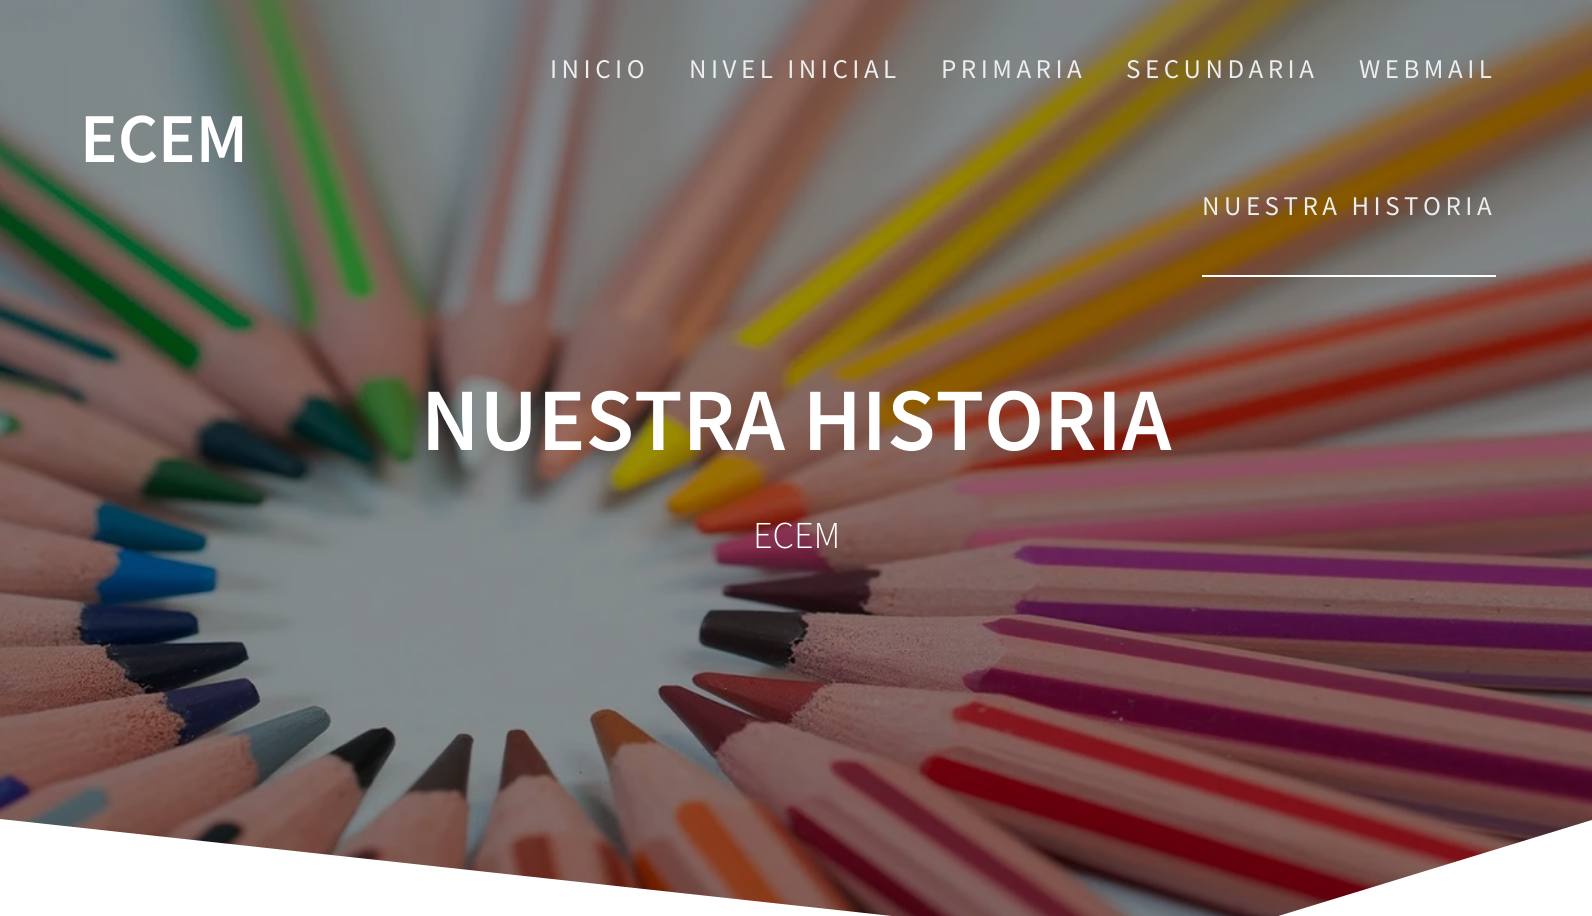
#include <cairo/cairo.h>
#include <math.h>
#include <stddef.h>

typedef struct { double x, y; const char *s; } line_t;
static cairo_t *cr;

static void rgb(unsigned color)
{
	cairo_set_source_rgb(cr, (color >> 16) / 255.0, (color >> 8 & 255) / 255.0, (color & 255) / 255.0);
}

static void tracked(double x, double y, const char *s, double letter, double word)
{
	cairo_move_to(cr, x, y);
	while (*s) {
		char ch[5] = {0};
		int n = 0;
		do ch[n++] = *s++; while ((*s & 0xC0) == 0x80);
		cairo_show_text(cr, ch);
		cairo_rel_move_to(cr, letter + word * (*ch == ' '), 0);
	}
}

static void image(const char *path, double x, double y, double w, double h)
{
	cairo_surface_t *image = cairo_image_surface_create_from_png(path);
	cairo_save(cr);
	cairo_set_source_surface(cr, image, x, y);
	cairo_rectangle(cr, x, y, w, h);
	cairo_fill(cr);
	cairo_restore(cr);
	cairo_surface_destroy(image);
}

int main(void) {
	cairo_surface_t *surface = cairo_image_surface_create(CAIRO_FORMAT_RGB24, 1592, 916);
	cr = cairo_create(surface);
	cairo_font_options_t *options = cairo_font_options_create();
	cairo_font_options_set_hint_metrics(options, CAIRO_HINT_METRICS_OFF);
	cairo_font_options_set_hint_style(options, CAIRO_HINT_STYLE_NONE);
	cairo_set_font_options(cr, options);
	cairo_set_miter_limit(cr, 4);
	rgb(0xffffff);
	cairo_paint(cr);
	image("img/1.png", 0, 0, 1592, 916);
	rgb(0xffffff);
	cairo_rectangle(cr, 1202, 275, 294, 2);
	cairo_fill(cr);
	cairo_new_path(cr);
	cairo_move_to(cr, 1177, 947);
	cairo_line_to(cr, 0, 819);
	cairo_line_to(cr, 0, 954);
	cairo_line_to(cr, 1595, 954);
	cairo_line_to(cr, 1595, 819);
	cairo_close_path(cr);
	cairo_fill(cr);
	cairo_select_font_face(cr, "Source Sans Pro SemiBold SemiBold", CAIRO_FONT_SLANT_NORMAL, CAIRO_FONT_WEIGHT_NORMAL);
	cairo_set_font_size(cr, 70);
	cairo_move_to(cr, 80, 162);
	cairo_show_text(cr, "ECEM");
	cairo_select_font_face(cr, "Source Sans Pro", CAIRO_FONT_SLANT_NORMAL, CAIRO_FONT_WEIGHT_NORMAL);
	cairo_set_font_size(cr, 27);
	rgb(0xededed);
	{
		static const line_t items[] = {
			{550, 78, "INICIO"},
			{689, 78, "NIVEL INICIAL"},
			{941, 78, "PRIMARIA"},
			{1126, 78, "SECUNDARIA"},
			{1359, 78, "WEBMAIL"},
			{1202, 215, "NUESTRA HISTORIA"},
		};
		for (size_t i = 0; i < sizeof items / sizeof *items; i++) {
			tracked(items[i].x, items[i].y, items[i].s, 4.5, 0);
		}
	}
	cairo_select_font_face(cr, "Source Sans Pro SemiBold SemiBold", CAIRO_FONT_SLANT_NORMAL, CAIRO_FONT_WEIGHT_NORMAL);
	cairo_set_font_size(cr, 89);
	rgb(0xffffff);
	cairo_move_to(cr, 421, 450);
	cairo_show_text(cr, "NUESTRA HISTORIA");
	cairo_select_font_face(cr, "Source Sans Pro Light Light", CAIRO_FONT_SLANT_NORMAL, CAIRO_FONT_WEIGHT_NORMAL);
	cairo_set_font_size(cr, 38);
	cairo_move_to(cr, 753, 548);
	cairo_show_text(cr, "ECEM");
	cairo_surface_write_to_png(surface, "page.png");
	cairo_font_options_destroy(options);
	cairo_destroy(cr);
	cairo_surface_destroy(surface);
	return 0;
}
